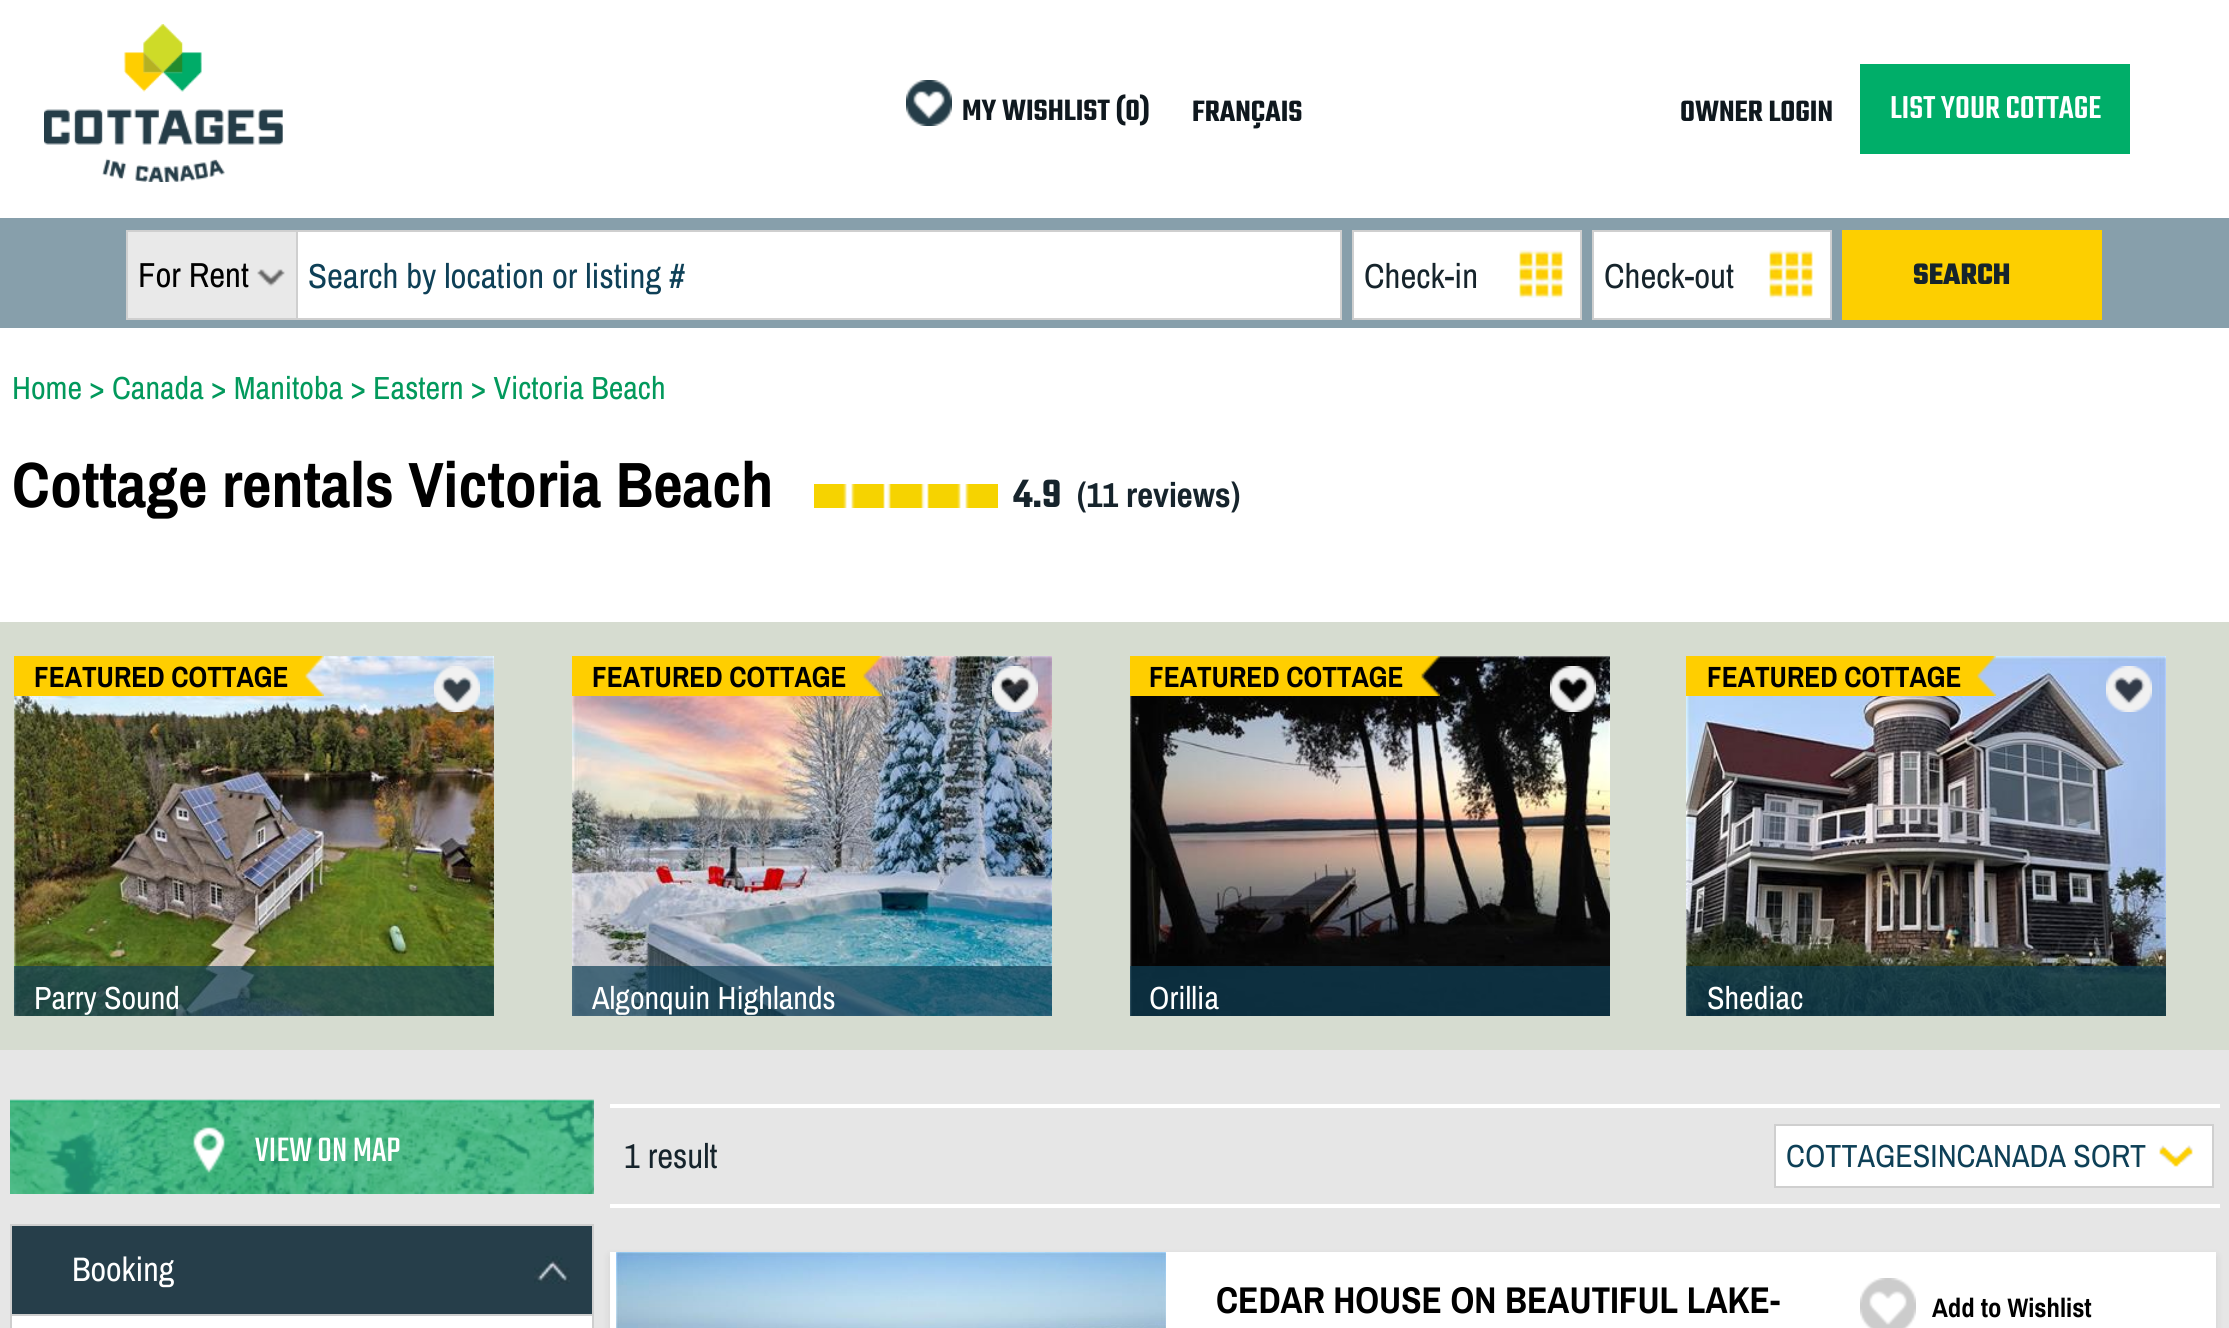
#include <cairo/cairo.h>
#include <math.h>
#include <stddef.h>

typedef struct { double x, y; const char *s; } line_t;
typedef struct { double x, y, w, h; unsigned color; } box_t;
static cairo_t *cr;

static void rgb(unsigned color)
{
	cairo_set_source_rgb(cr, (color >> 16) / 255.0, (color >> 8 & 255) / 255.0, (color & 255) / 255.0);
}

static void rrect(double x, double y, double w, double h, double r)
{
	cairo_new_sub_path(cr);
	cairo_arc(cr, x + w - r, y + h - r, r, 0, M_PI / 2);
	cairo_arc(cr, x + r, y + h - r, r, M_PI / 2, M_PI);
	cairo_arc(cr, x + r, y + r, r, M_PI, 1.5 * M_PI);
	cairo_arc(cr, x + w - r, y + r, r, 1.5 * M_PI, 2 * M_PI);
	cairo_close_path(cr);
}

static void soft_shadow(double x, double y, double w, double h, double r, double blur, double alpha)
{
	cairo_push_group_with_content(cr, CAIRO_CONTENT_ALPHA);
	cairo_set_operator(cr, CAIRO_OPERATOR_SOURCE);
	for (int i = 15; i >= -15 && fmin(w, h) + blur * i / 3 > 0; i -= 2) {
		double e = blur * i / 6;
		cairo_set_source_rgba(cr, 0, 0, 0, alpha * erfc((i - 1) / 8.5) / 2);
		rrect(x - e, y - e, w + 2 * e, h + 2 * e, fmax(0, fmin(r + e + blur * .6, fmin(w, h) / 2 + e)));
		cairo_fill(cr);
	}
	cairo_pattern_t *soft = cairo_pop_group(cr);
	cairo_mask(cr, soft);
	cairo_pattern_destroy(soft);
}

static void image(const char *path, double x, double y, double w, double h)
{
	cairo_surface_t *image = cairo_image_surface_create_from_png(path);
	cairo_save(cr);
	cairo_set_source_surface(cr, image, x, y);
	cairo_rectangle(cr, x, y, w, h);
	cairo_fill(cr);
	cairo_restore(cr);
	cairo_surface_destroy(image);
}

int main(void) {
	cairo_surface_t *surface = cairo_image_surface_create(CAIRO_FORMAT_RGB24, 2229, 1328);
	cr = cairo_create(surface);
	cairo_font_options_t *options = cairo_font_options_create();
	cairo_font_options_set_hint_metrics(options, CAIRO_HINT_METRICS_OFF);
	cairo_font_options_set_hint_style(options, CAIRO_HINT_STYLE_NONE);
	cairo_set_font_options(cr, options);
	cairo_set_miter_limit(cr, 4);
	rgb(0xffffff);
	cairo_paint(cr);
	image("img/1.png", 44, 24, 239, 158);
	image("img/2.png", 906, 80, 46, 46);
	{
		static const box_t items[] = {
			{1860, 64, 270, 90, 0x00ae69},
			{0, 218, 2229, 110, 0x879fab},
			{128, 232, 168, 86, 0xe9e9e9},
		};
		for (size_t i = 0; i < sizeof items / sizeof *items; i++) {
			rgb(items[i].color);
			cairo_rectangle(cr, items[i].x, items[i].y, items[i].w, items[i].h);
			cairo_fill(cr);
		}
	}
	image("img/3.png", 257, 269, 28, 18);
	{
		static const box_t items[] = {
			{126, 230, 170, 2, 0xcfcfcf},
			{126, 318, 170, 2, 0xcfcfcf},
			{126, 230, 2, 90, 0xcfcfcf},
		};
		for (size_t i = 0; i < sizeof items / sizeof *items; i++) {
			rgb(items[i].color);
			cairo_rectangle(cr, items[i].x, items[i].y, items[i].w, items[i].h);
			cairo_fill(cr);
		}
	}
	rgb(0xffffff);
	cairo_rectangle(cr, 297, 231, 1044, 88);
	cairo_fill_preserve(cr);
	rgb(0xcfcfcf);
	cairo_stroke(cr);
	rgb(0xffffff);
	cairo_rectangle(cr, 1354, 232, 226, 86);
	cairo_fill(cr);
	image("img/4.png", 1519, 250, 44, 48);
	cairo_rectangle(cr, 1353, 231, 228, 88);
	rgb(0xcfcfcf);
	cairo_stroke(cr);
	rgb(0xffffff);
	cairo_rectangle(cr, 1594, 232, 236, 86);
	cairo_fill(cr);
	image("img/4.png", 1769, 250, 44, 48);
	cairo_rectangle(cr, 1593, 231, 238, 88);
	rgb(0xcfcfcf);
	cairo_stroke(cr);
	rgb(0xfdcf00);
	cairo_rectangle(cr, 1842, 230, 260, 90);
	cairo_fill(cr);
	image("img/5.png", 814, 484, 184, 24);
	rgb(0xd6dcd0);
	cairo_rectangle(cr, 0, 622, 2229, 428);
	cairo_fill(cr);
	image("img/6.png", 14, 656, 480, 360);
	image("img/7.png", 14, 656, 310, 40);
	image("img/8.png", 434, 666, 46, 46);
	cairo_set_source_rgba(cr, 0.059, 0.247, 0.337, 0.7);
	cairo_rectangle(cr, 14, 966, 480, 50);
	cairo_fill(cr);
	image("img/9.png", 572, 656, 480, 360);
	image("img/10.png", 572, 656, 310, 40);
	image("img/11.png", 992, 666, 46, 46);
	cairo_rectangle(cr, 572, 966, 480, 50);
	cairo_fill(cr);
	image("img/12.png", 1130, 656, 480, 360);
	image("img/13.png", 1130, 656, 310, 40);
	image("img/14.png", 1550, 666, 46, 46);
	cairo_rectangle(cr, 1130, 966, 480, 50);
	cairo_fill(cr);
	image("img/15.png", 1686, 656, 480, 360);
	image("img/16.png", 1686, 656, 310, 40);
	image("img/17.png", 2106, 666, 46, 46);
	cairo_rectangle(cr, 1686, 966, 480, 50);
	cairo_fill(cr);
	rgb(0xe6e6e6);
	cairo_rectangle(cr, 0, 1050, 2229, 278);
	cairo_fill(cr);
	rgb(0xffffff);
	cairo_rectangle(cr, 12, 1316, 580, 12);
	cairo_fill(cr);
	image("img/18.png", 10, 1099, 584, 95);
	image("img/19.png", 193, 1127, 32, 46);
	cairo_rectangle(cr, 11, 1225, 582, 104);
	rgb(0xcecece);
	cairo_stroke(cr);
	rgb(0x263e4a);
	cairo_rectangle(cr, 12, 1226, 580, 88);
	cairo_fill(cr);
	rgb(0xcecece);
	cairo_rectangle(cr, 12, 1314, 580, 2);
	cairo_fill(cr);
	image("img/20.png", 534, 1256, 36, 28);
	rgb(0xffffff);
	cairo_rectangle(cr, 610, 1104, 1610, 4);
	cairo_fill(cr);
	cairo_rectangle(cr, 1776, 1126, 436, 60);
	cairo_fill(cr);
	image("img/21.png", 2159, 1145, 34, 22);
	cairo_rectangle(cr, 1775, 1125, 438, 62);
	rgb(0xcfcfcf);
	cairo_stroke(cr);
	rgb(0xffffff);
	cairo_rectangle(cr, 610, 1204, 1610, 4);
	cairo_fill(cr);
	rgb(0x000000);
	soft_shadow(610, 1256, 1606, 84, 0, 4, 0.1);
	rgb(0xffffff);
	cairo_rectangle(cr, 610, 1252, 1606, 76);
	cairo_fill(cr);
	image("img/22.png", 616, 1252, 550, 76);
	image("img/23.png", 1860, 1278, 56, 50);
	cairo_select_font_face(cr, "Teko SemiBold", CAIRO_FONT_SLANT_NORMAL, CAIRO_FONT_WEIGHT_NORMAL);
	cairo_set_font_size(cr, 32);
	rgb(0x0f181e);
	{
		static const line_t items[] = {
			{962, 120, "MY WISHLIST (0)"},
			{1192, 121, "FRANÇAIS"},
			{1680, 121, "OWNER LOGIN"},
		};
		for (size_t i = 0; i < sizeof items / sizeof *items; i++) {
			cairo_move_to(cr, items[i].x, items[i].y);
			cairo_show_text(cr, items[i].s);
		}
	}
	cairo_select_font_face(cr, "Teko Medium", CAIRO_FONT_SLANT_NORMAL, CAIRO_FONT_WEIGHT_NORMAL);
	cairo_set_font_size(cr, 34.75);
	rgb(0xffffff);
	cairo_move_to(cr, 1890, 118);
	cairo_show_text(cr, "LIST YOUR COTTAGE");
	cairo_select_font_face(cr, "Archivo Narrow", CAIRO_FONT_SLANT_NORMAL, CAIRO_FONT_WEIGHT_NORMAL);
	rgb(0x000000);
	cairo_move_to(cr, 138, 287);
	cairo_show_text(cr, "For Rent");
	rgb(0x0e4057);
	cairo_move_to(cr, 308, 288);
	cairo_show_text(cr, "Search by location or listing #");
	rgb(0x16242c);
	cairo_move_to(cr, 1364, 288);
	cairo_show_text(cr, "Check-in");
	cairo_move_to(cr, 1604, 288);
	cairo_show_text(cr, "Check-out");
	cairo_select_font_face(cr, "Teko", CAIRO_FONT_SLANT_NORMAL, CAIRO_FONT_WEIGHT_BOLD);
	cairo_set_font_size(cr, 32);
	cairo_move_to(cr, 1913, 284);
	cairo_show_text(cr, "SEARCH");
	cairo_select_font_face(cr, "Archivo Narrow", CAIRO_FONT_SLANT_NORMAL, CAIRO_FONT_WEIGHT_NORMAL);
	rgb(0x02995c);
	cairo_move_to(cr, 12, 399);
	cairo_show_text(cr, "Home > Canada > Manitoba > Eastern > Victoria Beach");
	cairo_select_font_face(cr, "Archivo Narrow", CAIRO_FONT_SLANT_NORMAL, CAIRO_FONT_WEIGHT_BOLD);
	cairo_set_font_size(cr, 64);
	rgb(0x000000);
	cairo_move_to(cr, 12, 507);
	cairo_show_text(cr, "Cottage rentals Victoria Beach");
	cairo_select_font_face(cr, "Teko SemiBold", CAIRO_FONT_SLANT_NORMAL, CAIRO_FONT_WEIGHT_NORMAL);
	cairo_set_font_size(cr, 43);
	rgb(0x16242c);
	cairo_move_to(cr, 1013, 507);
	cairo_show_text(cr, "4.9");
	cairo_select_font_face(cr, "Archivo Narrow", CAIRO_FONT_SLANT_NORMAL, CAIRO_FONT_WEIGHT_BOLD);
	cairo_set_font_size(cr, 34.75);
	cairo_move_to(cr, 1077, 507);
	cairo_show_text(cr, "(11 reviews)");
	cairo_set_font_size(cr, 29.25);
	rgb(0x000000);
	cairo_move_to(cr, 34, 687);
	cairo_show_text(cr, "FEATURED COTTAGE");
	cairo_select_font_face(cr, "Archivo Narrow", CAIRO_FONT_SLANT_NORMAL, CAIRO_FONT_WEIGHT_NORMAL);
	cairo_set_font_size(cr, 32);
	rgb(0xffffff);
	cairo_move_to(cr, 34, 1009);
	cairo_show_text(cr, "Parry Sound");
	cairo_select_font_face(cr, "Archivo Narrow", CAIRO_FONT_SLANT_NORMAL, CAIRO_FONT_WEIGHT_BOLD);
	cairo_set_font_size(cr, 29.25);
	rgb(0x000000);
	cairo_move_to(cr, 592, 687);
	cairo_show_text(cr, "FEATURED COTTAGE");
	cairo_select_font_face(cr, "Archivo Narrow", CAIRO_FONT_SLANT_NORMAL, CAIRO_FONT_WEIGHT_NORMAL);
	cairo_set_font_size(cr, 32);
	rgb(0xffffff);
	cairo_move_to(cr, 592, 1009);
	cairo_show_text(cr, "Algonquin Highlands");
	cairo_select_font_face(cr, "Archivo Narrow", CAIRO_FONT_SLANT_NORMAL, CAIRO_FONT_WEIGHT_BOLD);
	cairo_set_font_size(cr, 29.25);
	rgb(0x000000);
	cairo_move_to(cr, 1149, 687);
	cairo_show_text(cr, "FEATURED COTTAGE");
	cairo_select_font_face(cr, "Archivo Narrow", CAIRO_FONT_SLANT_NORMAL, CAIRO_FONT_WEIGHT_NORMAL);
	cairo_set_font_size(cr, 32);
	rgb(0xffffff);
	cairo_move_to(cr, 1149, 1009);
	cairo_show_text(cr, "Orillia");
	cairo_select_font_face(cr, "Archivo Narrow", CAIRO_FONT_SLANT_NORMAL, CAIRO_FONT_WEIGHT_BOLD);
	cairo_set_font_size(cr, 29.25);
	rgb(0x000000);
	cairo_move_to(cr, 1707, 687);
	cairo_show_text(cr, "FEATURED COTTAGE");
	cairo_select_font_face(cr, "Archivo Narrow", CAIRO_FONT_SLANT_NORMAL, CAIRO_FONT_WEIGHT_NORMAL);
	cairo_set_font_size(cr, 32);
	rgb(0xffffff);
	cairo_move_to(cr, 1707, 1009);
	cairo_show_text(cr, "Shediac");
	cairo_select_font_face(cr, "Teko", CAIRO_FONT_SLANT_NORMAL, CAIRO_FONT_WEIGHT_NORMAL);
	cairo_set_font_size(cr, 37.3);
	cairo_move_to(cr, 255, 1161);
	cairo_show_text(cr, "VIEW ON MAP");
	cairo_select_font_face(cr, "Archivo Narrow", CAIRO_FONT_SLANT_NORMAL, CAIRO_FONT_WEIGHT_NORMAL);
	cairo_set_font_size(cr, 34);
	cairo_move_to(cr, 72, 1281);
	cairo_show_text(cr, "Booking");
	cairo_set_font_size(cr, 34.75);
	rgb(0x16242c);
	cairo_move_to(cr, 624, 1168);
	cairo_show_text(cr, "1 result");
	cairo_set_font_size(cr, 32);
	rgb(0x0e4057);
	cairo_move_to(cr, 1786, 1167);
	cairo_show_text(cr, "COTTAGESINCANADA SORT");
	cairo_select_font_face(cr, "Archivo Narrow", CAIRO_FONT_SLANT_NORMAL, CAIRO_FONT_WEIGHT_BOLD);
	cairo_set_font_size(cr, 37.3);
	rgb(0x000000);
	cairo_move_to(cr, 1216, 1313);
	cairo_show_text(cr, "CEDAR HOUSE ON BEAUTIFUL LAKE-");
	cairo_set_font_size(cr, 26.75);
	cairo_move_to(cr, 1932, 1317);
	cairo_show_text(cr, "Add to Wishlist");
	cairo_surface_write_to_png(surface, "page.png");
	cairo_font_options_destroy(options);
	cairo_destroy(cr);
	cairo_surface_destroy(surface);
	return 0;
}
